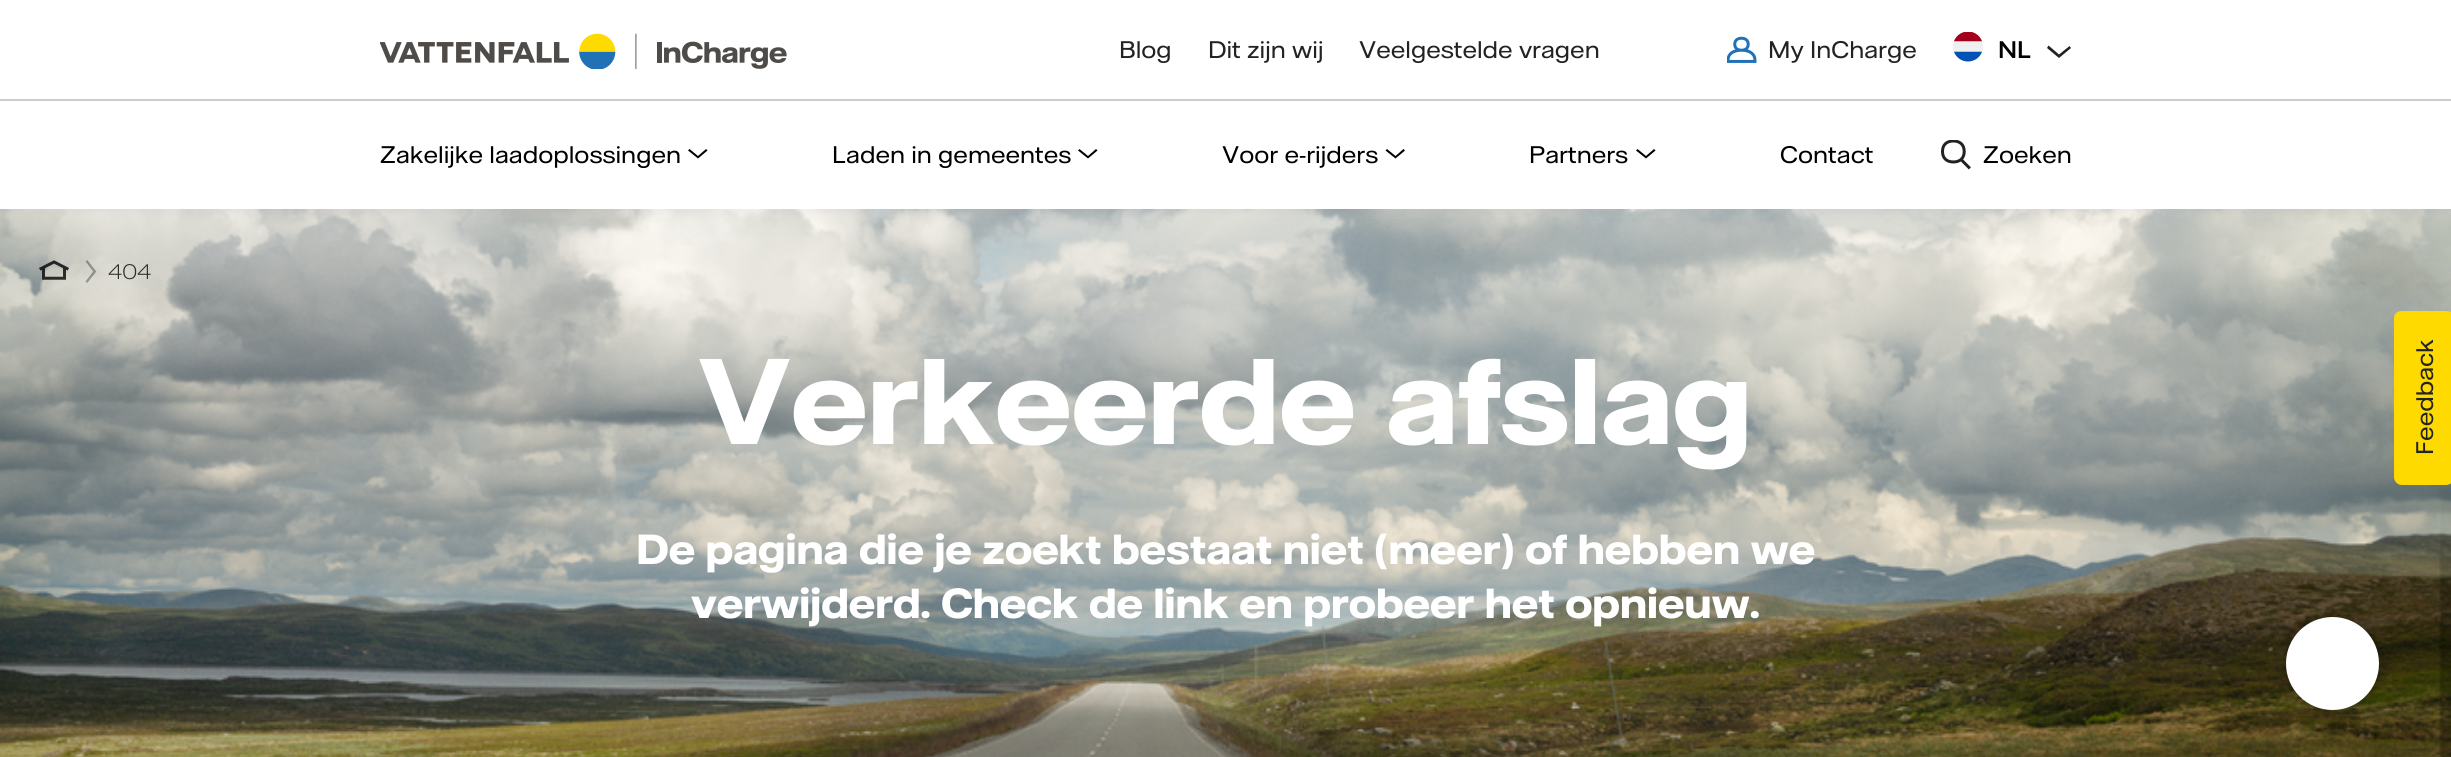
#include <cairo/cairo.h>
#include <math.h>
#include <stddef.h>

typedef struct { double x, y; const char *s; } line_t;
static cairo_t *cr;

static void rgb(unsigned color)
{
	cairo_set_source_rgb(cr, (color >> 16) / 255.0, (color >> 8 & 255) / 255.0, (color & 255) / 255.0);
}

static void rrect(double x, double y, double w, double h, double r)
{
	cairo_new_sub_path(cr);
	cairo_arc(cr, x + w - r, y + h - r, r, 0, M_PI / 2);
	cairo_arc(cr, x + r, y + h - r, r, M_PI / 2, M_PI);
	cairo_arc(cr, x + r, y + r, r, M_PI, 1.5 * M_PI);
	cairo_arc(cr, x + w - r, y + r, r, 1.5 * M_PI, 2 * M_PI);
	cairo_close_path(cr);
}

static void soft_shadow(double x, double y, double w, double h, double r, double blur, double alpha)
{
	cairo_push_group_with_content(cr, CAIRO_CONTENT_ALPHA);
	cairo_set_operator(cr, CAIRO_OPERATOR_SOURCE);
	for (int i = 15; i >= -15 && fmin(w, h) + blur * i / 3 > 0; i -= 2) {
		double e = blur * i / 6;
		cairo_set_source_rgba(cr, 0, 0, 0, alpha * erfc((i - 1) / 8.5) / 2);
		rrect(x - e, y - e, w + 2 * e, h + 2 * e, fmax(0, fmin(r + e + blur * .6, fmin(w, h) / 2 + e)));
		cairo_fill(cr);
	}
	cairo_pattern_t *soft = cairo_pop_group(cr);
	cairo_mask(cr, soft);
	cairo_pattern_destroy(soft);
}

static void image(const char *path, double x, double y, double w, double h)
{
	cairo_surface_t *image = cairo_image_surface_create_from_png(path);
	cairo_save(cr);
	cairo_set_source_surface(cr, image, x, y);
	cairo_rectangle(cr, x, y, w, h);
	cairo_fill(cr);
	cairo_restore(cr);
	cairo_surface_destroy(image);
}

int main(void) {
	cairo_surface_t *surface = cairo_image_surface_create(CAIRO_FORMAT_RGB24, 2451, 757);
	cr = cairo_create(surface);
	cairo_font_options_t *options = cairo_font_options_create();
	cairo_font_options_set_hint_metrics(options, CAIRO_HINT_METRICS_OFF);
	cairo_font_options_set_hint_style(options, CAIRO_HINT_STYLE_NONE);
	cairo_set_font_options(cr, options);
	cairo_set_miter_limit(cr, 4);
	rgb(0xffffff);
	cairo_paint(cr);
	image("img/5.png", 0, 209, 2451, 548);
	rgb(0x767676);
	soft_shadow(0, 2, 2451, 208, 0, 6, 0.12);
	rgb(0xffffff);
	cairo_rectangle(cr, 0, 0, 2451, 209);
	cairo_fill(cr);
	rgb(0xcccccc);
	cairo_rectangle(cr, 0, 99, 2451, 2);
	cairo_fill(cr);
	image("img/1.png", 380, 33, 407, 36);
	image("img/2.png", 1727, 36, 30, 27);
	image("img/3.png", 1953, 32, 30, 30);
	rgb(0x222222);
	cairo_new_path(cr);
	cairo_move_to(cr, 2048.5, 45.5);
	cairo_line_to(cr, 2059, 54.5);
	cairo_line_to(cr, 2069.5, 46);
	cairo_line_to(cr, 2071, 48);
	cairo_line_to(cr, 2059, 58);
	cairo_line_to(cr, 2047, 48);
	cairo_close_path(cr);
	cairo_fill(cr);
	rgb(0x000000);
	cairo_new_path(cr);
	cairo_move_to(cr, 689.5, 149);
	cairo_line_to(cr, 698, 156);
	cairo_line_to(cr, 706, 149);
	cairo_line_to(cr, 707.5, 150.5);
	cairo_line_to(cr, 698, 158.5);
	cairo_line_to(cr, 688, 150.5);
	cairo_close_path(cr);
	cairo_fill(cr);
	cairo_new_path(cr);
	cairo_move_to(cr, 1079.5, 149);
	cairo_line_to(cr, 1088, 156);
	cairo_line_to(cr, 1096, 149);
	cairo_line_to(cr, 1097.5, 150.5);
	cairo_line_to(cr, 1088, 158.5);
	cairo_line_to(cr, 1078, 150.5);
	cairo_close_path(cr);
	cairo_fill(cr);
	cairo_new_path(cr);
	cairo_move_to(cr, 1387, 149);
	cairo_line_to(cr, 1395.5, 156);
	cairo_line_to(cr, 1403.5, 149);
	cairo_line_to(cr, 1405, 150.5);
	cairo_line_to(cr, 1395.5, 158.5);
	cairo_line_to(cr, 1385.5, 150.5);
	cairo_close_path(cr);
	cairo_fill(cr);
	cairo_new_path(cr);
	cairo_move_to(cr, 1637.5, 149);
	cairo_line_to(cr, 1646, 156);
	cairo_line_to(cr, 1654, 149);
	cairo_line_to(cr, 1655.5, 150.5);
	cairo_line_to(cr, 1646, 158.5);
	cairo_line_to(cr, 1636, 150.5);
	cairo_close_path(cr);
	cairo_fill(cr);
	image("img/4.png", 1941, 140, 30, 30);
	image("img/6.png", 39, 260, 30, 20);
	image("img/7.png", 85, 260, 12, 23);
	rgb(0xffda00);
	cairo_new_path(cr);
	cairo_move_to(cr, 2446, 485);
	cairo_line_to(cr, 2402, 485);
	cairo_curve_to(cr, 2397, 485, 2394, 481, 2394, 477);
	cairo_line_to(cr, 2394, 318);
	cairo_curve_to(cr, 2394, 314, 2397, 311, 2402, 311);
	cairo_line_to(cr, 2446, 311);
	cairo_curve_to(cr, 2451, 311, 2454, 314, 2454, 318);
	cairo_line_to(cr, 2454, 477);
	cairo_curve_to(cr, 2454, 481, 2451, 485, 2446, 485);
	cairo_close_path(cr);
	cairo_fill(cr);
	rgb(0x000000);
	soft_shadow(2286, 618, 93, 93, 46.5, 6, 0.3);
	rgb(0xffffff);
	cairo_arc(cr, 2332.5, 663.5, 46.5, 0, 2 * M_PI);
	cairo_fill(cr);
	cairo_select_font_face(cr, "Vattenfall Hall", CAIRO_FONT_SLANT_NORMAL, CAIRO_FONT_WEIGHT_NORMAL);
	cairo_set_font_size(cr, 24);
	rgb(0x222222);
	{
		static const line_t items[] = {
			{1119, 58, "Blog"},
			{1208, 58, "Dit zijn wij"},
			{1359, 58, "Veelgestelde vragen"},
			{1768, 58, "My InCharge"},
		};
		for (size_t i = 0; i < sizeof items / sizeof *items; i++) {
			cairo_move_to(cr, items[i].x, items[i].y);
			cairo_show_text(cr, items[i].s);
		}
	}
	cairo_select_font_face(cr, "Vattenfall Hall Medium", CAIRO_FONT_SLANT_NORMAL, CAIRO_FONT_WEIGHT_NORMAL);
	rgb(0x000000);
	cairo_move_to(cr, 1998, 58);
	cairo_show_text(cr, "NL");
	cairo_select_font_face(cr, "Vattenfall Hall", CAIRO_FONT_SLANT_NORMAL, CAIRO_FONT_WEIGHT_NORMAL);
	{
		static const line_t items[] = {
			{380, 163, "Zakelijke laadoplossingen"},
			{832, 163, "Laden in gemeentes"},
			{1222, 163, "Voor e-rijders"},
			{1529, 163, "Partners"},
			{1780, 163, "Contact"},
			{1983, 163, "Zoeken"},
		};
		for (size_t i = 0; i < sizeof items / sizeof *items; i++) {
			cairo_move_to(cr, items[i].x, items[i].y);
			cairo_show_text(cr, items[i].s);
		}
	}
	cairo_select_font_face(cr, "Vattenfall Hall Light", CAIRO_FONT_SLANT_NORMAL, CAIRO_FONT_WEIGHT_NORMAL);
	cairo_set_font_size(cr, 21);
	rgb(0x2b2b29);
	cairo_move_to(cr, 108, 279);
	cairo_show_text(cr, "404");
	cairo_select_font_face(cr, "Vattenfall Hall", CAIRO_FONT_SLANT_NORMAL, CAIRO_FONT_WEIGHT_BOLD);
	cairo_set_font_size(cr, 121.5);
	rgb(0xffffff);
	cairo_move_to(cr, 698, 444);
	cairo_show_text(cr, "Verkeerde afslag");
	cairo_set_font_size(cr, 42);
	cairo_move_to(cr, 636, 564);
	cairo_show_text(cr, "De pagina die je zoekt bestaat niet (meer) of hebben we");
	cairo_move_to(cr, 691, 618);
	cairo_show_text(cr, "verwijderd. Check de link en probeer het opnieuw.");
	cairo_select_font_face(cr, "Vattenfall Hall", CAIRO_FONT_SLANT_NORMAL, CAIRO_FONT_WEIGHT_NORMAL);
	cairo_set_font_size(cr, 24);
	rgb(0x222222);
	cairo_save(cr);
	cairo_translate(cr, 2433, 455);
	cairo_rotate(cr, -90 * M_PI / 180);
	cairo_move_to(cr, 0, 0);
	cairo_show_text(cr, "Feedback");
	cairo_restore(cr);
	cairo_surface_write_to_png(surface, "page.png");
	cairo_font_options_destroy(options);
	cairo_destroy(cr);
	cairo_surface_destroy(surface);
	return 0;
}
